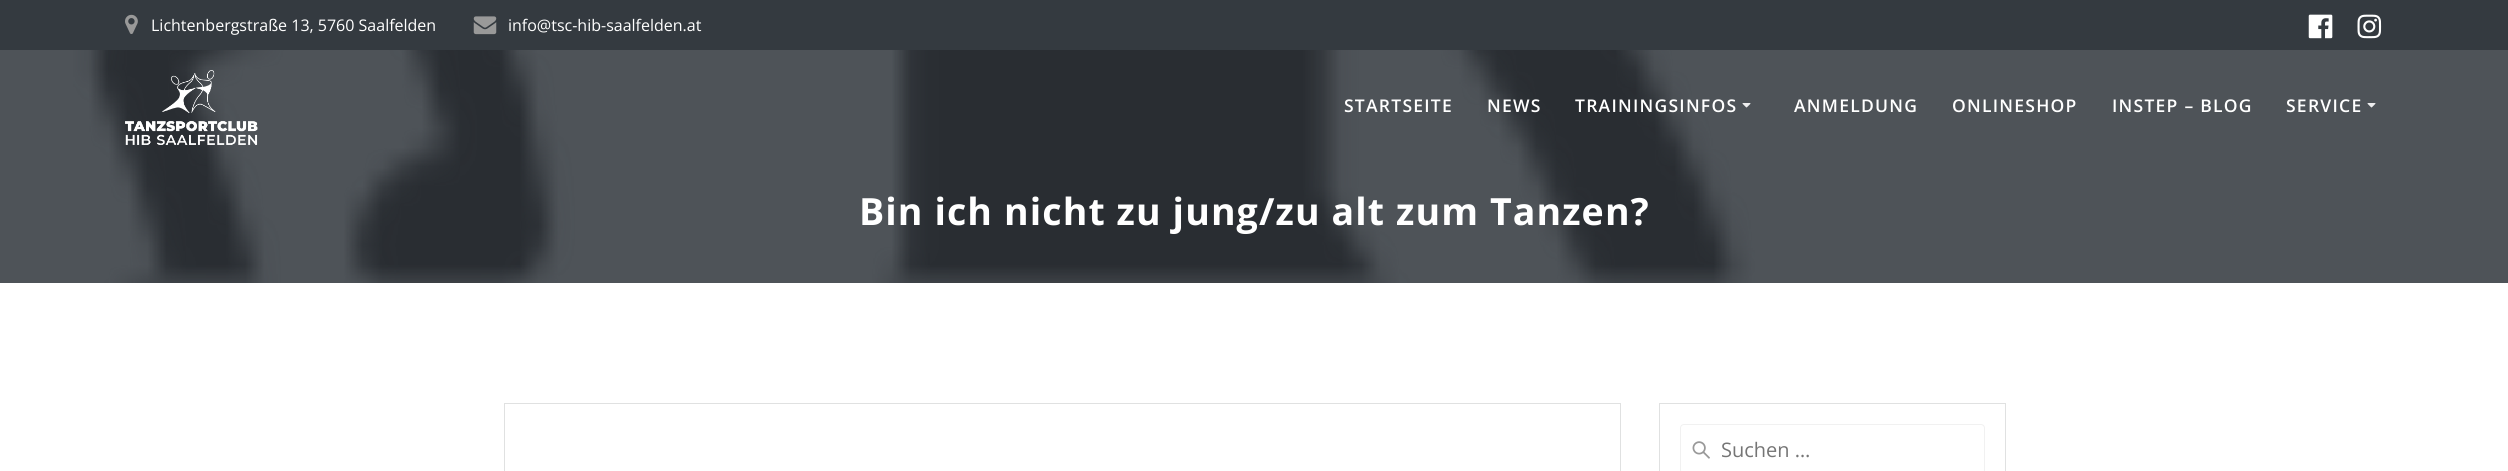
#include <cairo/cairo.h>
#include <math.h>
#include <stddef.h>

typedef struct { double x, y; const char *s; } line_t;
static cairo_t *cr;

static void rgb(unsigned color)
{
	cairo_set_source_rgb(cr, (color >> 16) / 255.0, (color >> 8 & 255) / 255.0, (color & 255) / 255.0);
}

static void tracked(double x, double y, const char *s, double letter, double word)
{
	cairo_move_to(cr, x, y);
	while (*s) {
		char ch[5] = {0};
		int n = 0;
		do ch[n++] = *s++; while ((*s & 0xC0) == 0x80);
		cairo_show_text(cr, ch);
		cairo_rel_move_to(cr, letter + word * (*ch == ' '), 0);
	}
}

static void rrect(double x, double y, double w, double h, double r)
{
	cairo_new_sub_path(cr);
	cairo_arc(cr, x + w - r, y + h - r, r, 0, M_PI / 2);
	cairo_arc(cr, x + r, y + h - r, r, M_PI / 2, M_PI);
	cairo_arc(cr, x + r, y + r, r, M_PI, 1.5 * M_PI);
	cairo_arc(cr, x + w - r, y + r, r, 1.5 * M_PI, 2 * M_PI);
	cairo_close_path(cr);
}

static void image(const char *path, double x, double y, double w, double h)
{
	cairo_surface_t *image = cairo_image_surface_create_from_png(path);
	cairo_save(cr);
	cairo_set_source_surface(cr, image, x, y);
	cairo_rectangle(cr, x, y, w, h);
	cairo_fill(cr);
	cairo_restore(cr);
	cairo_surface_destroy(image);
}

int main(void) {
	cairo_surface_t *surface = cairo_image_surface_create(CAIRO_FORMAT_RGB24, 2508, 471);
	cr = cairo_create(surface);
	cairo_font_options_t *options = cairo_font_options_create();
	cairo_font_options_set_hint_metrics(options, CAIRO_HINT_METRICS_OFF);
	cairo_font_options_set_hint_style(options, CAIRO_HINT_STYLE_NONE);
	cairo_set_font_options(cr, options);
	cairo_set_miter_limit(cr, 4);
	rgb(0x4e5358);
	cairo_paint(cr);
	rgb(0x343a40);
	cairo_rectangle(cr, 0, 0, 2508, 50);
	cairo_fill(cr);
	image("img/1.png", 125, 14, 13, 20);
	image("img/2.png", 473, 16, 24, 19);
	image("img/3.png", 2308, 14, 25, 25);
	image("img/4.png", 2357, 14, 25, 25);
	image("img/7.png", 73, 50, 1682, 233);
	image("img/5.png", 125, 70, 133, 75);
	image("img/6.png", 1742, 103, 9, 5);
	image("img/6.png", 2367, 103, 9, 5);
	rgb(0xffffff);
	cairo_rectangle(cr, 0, 283, 2508, 188);
	cairo_fill(cr);
	cairo_rectangle(cr, 504.5, 403.5, 1116, 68);
	rgb(0xe0e1e1);
	cairo_set_line_width(cr, 1);
	cairo_stroke(cr);
	cairo_rectangle(cr, 1659.5, 403.5, 346, 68);
	cairo_stroke(cr);
	image("img/8.png", 1692, 441, 18, 18);
	rrect(1680.5, 424.5, 304, 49, 3.5);
	rgb(0xf1f1f1);
	cairo_stroke(cr);
	cairo_select_font_face(cr, "Open Sans", CAIRO_FONT_SLANT_NORMAL, CAIRO_FONT_WEIGHT_NORMAL);
	cairo_set_font_size(cr, 16);
	rgb(0xffffff);
	cairo_move_to(cr, 151, 31);
	cairo_show_text(cr, "Lichtenbergstraße 13, 5760 Saalfelden");
	cairo_move_to(cr, 508, 31);
	cairo_show_text(cr, "info@tsc-hib-saalfelden.at");
	cairo_select_font_face(cr, "Open Sans SemiBold", CAIRO_FONT_SLANT_NORMAL, CAIRO_FONT_WEIGHT_NORMAL);
	cairo_set_font_size(cr, 17.5);
	{
		static const line_t items[] = {
			{1344, 112, "STARTSEITE"},
			{1487, 112, "NEWS"},
			{1575, 112, "TRAININGSINFOS"},
			{1794, 112, "ANMELDUNG"},
			{1952, 112, "ONLINESHOP"},
			{2112, 112, "INSTEP – BLOG"},
			{2286, 112, "SERVICE"},
		};
		for (size_t i = 0; i < sizeof items / sizeof *items; i++) {
			tracked(items[i].x, items[i].y, items[i].s, 1.25, 0);
		}
	}
	cairo_select_font_face(cr, "Open Sans", CAIRO_FONT_SLANT_NORMAL, CAIRO_FONT_WEIGHT_BOLD);
	cairo_set_font_size(cr, 37.5);
	tracked(859, 225, "Bin ich nicht zu jung/zu alt zum Tanzen?", 1.1, 0);
	cairo_select_font_face(cr, "Open Sans", CAIRO_FONT_SLANT_NORMAL, CAIRO_FONT_WEIGHT_NORMAL);
	cairo_set_font_size(cr, 20);
	rgb(0x757575);
	cairo_move_to(cr, 1721, 457);
	cairo_show_text(cr, "Suchen …");
	cairo_surface_write_to_png(surface, "page.png");
	cairo_font_options_destroy(options);
	cairo_destroy(cr);
	cairo_surface_destroy(surface);
	return 0;
}
